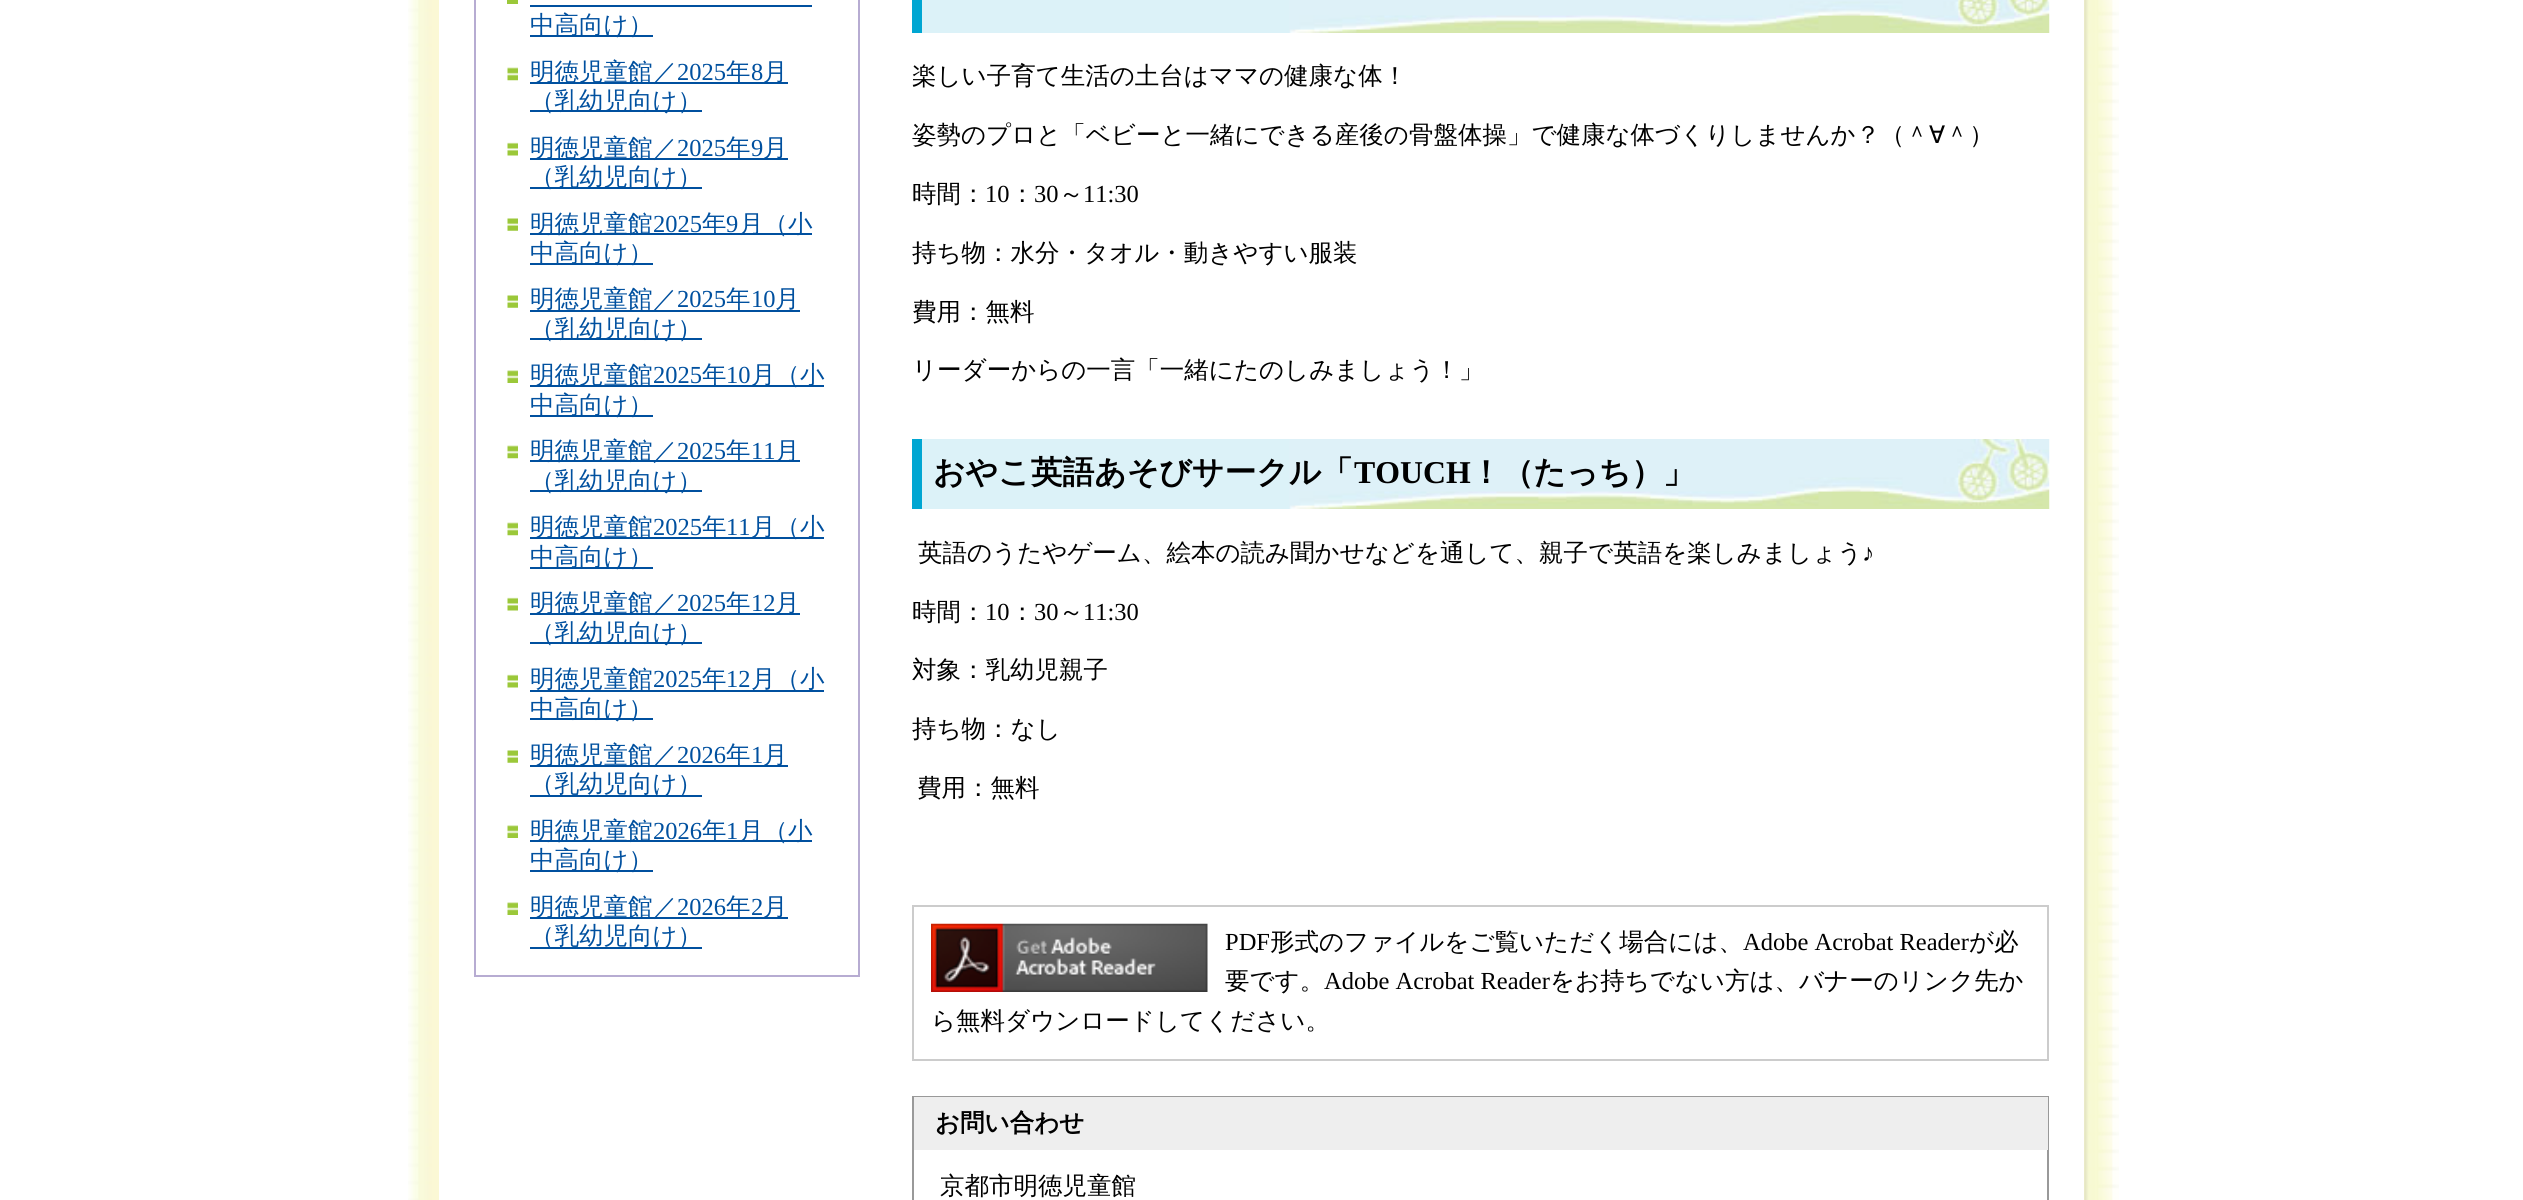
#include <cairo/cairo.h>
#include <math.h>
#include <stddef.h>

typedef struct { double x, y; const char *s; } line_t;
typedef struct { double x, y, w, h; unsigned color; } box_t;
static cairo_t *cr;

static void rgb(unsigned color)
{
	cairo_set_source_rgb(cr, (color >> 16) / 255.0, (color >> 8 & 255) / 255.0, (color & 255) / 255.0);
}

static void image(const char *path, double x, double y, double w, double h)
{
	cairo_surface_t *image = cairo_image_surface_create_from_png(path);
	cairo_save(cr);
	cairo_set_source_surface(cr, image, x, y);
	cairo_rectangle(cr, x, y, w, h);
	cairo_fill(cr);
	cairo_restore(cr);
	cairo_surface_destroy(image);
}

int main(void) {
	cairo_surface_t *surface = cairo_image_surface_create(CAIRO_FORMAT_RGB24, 2523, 1200);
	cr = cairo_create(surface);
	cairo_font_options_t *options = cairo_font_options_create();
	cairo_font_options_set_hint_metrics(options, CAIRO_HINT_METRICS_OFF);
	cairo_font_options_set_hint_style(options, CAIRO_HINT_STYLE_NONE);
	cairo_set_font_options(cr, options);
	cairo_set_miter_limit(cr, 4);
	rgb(0xffffff);
	cairo_paint(cr);
	image("img/1.png", 408, 0, 1677, 1200);
	image("img/2.png", 2084, 0, 35, 1200);
	{
		static const box_t items[] = {
			{439, 0, 1645, 1200, 0xffffff},
			{858, 0, 2, 977, 0xb7acd2},
			{474, 975, 385, 2, 0xb7acd2},
			{474, 0, 2, 977, 0xb7acd2},
			{507, 0, 11, 4, 0x9bc839},
			{530, 5, 282, 2, 0x00509f},
			{530, 35, 123, 2, 0x00509f},
		};
		for (size_t i = 0; i < sizeof items / sizeof *items; i++) {
			rgb(items[i].color);
			cairo_rectangle(cr, items[i].x, items[i].y, items[i].w, items[i].h);
			cairo_fill(cr);
		}
	}
	image("img/3.png", 507, 67, 11, 14);
	cairo_rectangle(cr, 530, 82, 258, 2);
	cairo_fill(cr);
	cairo_rectangle(cr, 530, 110, 172, 2);
	cairo_fill(cr);
	image("img/4.png", 507, 142, 11, 14);
	cairo_rectangle(cr, 530, 158, 258, 2);
	cairo_fill(cr);
	cairo_rectangle(cr, 530, 187, 172, 2);
	cairo_fill(cr);
	image("img/5.png", 507, 218, 11, 13);
	cairo_rectangle(cr, 530, 233, 282, 2);
	cairo_fill(cr);
	cairo_rectangle(cr, 530, 263, 123, 2);
	cairo_fill(cr);
	image("img/5.png", 507, 295, 11, 13);
	cairo_rectangle(cr, 530, 310, 270, 2);
	cairo_fill(cr);
	cairo_rectangle(cr, 530, 338, 172, 2);
	cairo_fill(cr);
	image("img/6.png", 507, 370, 11, 13);
	cairo_rectangle(cr, 530, 385, 294, 2);
	cairo_fill(cr);
	cairo_rectangle(cr, 530, 415, 123, 2);
	cairo_fill(cr);
	image("img/3.png", 507, 445, 11, 14);
	cairo_rectangle(cr, 530, 460, 270, 2);
	cairo_fill(cr);
	cairo_rectangle(cr, 530, 490, 172, 2);
	cairo_fill(cr);
	image("img/3.png", 507, 522, 11, 14);
	cairo_rectangle(cr, 530, 537, 294, 2);
	cairo_fill(cr);
	cairo_rectangle(cr, 530, 567, 123, 2);
	cairo_fill(cr);
	image("img/4.png", 507, 597, 11, 14);
	cairo_rectangle(cr, 530, 613, 270, 2);
	cairo_fill(cr);
	cairo_rectangle(cr, 530, 642, 172, 2);
	cairo_fill(cr);
	image("img/4.png", 507, 674, 11, 14);
	cairo_rectangle(cr, 530, 690, 294, 2);
	cairo_fill(cr);
	cairo_rectangle(cr, 530, 718, 123, 2);
	cairo_fill(cr);
	image("img/5.png", 507, 750, 11, 13);
	cairo_rectangle(cr, 530, 765, 258, 2);
	cairo_fill(cr);
	cairo_rectangle(cr, 530, 795, 172, 2);
	cairo_fill(cr);
	image("img/6.png", 507, 825, 11, 13);
	cairo_rectangle(cr, 530, 840, 282, 2);
	cairo_fill(cr);
	cairo_rectangle(cr, 530, 870, 123, 2);
	cairo_fill(cr);
	image("img/6.png", 507, 902, 11, 13);
	{
		static const box_t items[] = {
			{530, 917, 258, 2, 0x00509f},
			{530, 947, 172, 2, 0x00509f},
			{922, 0, 367, 33, 0xdcf2f8},
		};
		for (size_t i = 0; i < sizeof items / sizeof *items; i++) {
			rgb(items[i].color);
			cairo_rectangle(cr, items[i].x, items[i].y, items[i].w, items[i].h);
			cairo_fill(cr);
		}
	}
	image("img/7.png", 1289, 0, 761, 33);
	rgb(0x00a6d2);
	cairo_rectangle(cr, 912, 0, 10, 33);
	cairo_fill(cr);
	rgb(0xdcf2f8);
	cairo_rectangle(cr, 922, 439, 367, 70);
	cairo_fill(cr);
	image("img/8.png", 1289, 439, 761, 70);
	rgb(0x00a6d2);
	cairo_rectangle(cr, 912, 439, 10, 70);
	cairo_fill(cr);
	cairo_rectangle(cr, 913, 906, 1135, 154);
	rgb(0xcccccc);
	cairo_stroke(cr);
	image("img/9.png", 931, 923, 277, 69);
	cairo_rectangle(cr, 913, 1097, 1135, 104);
	rgb(0x999999);
	cairo_stroke(cr);
	rgb(0xeeeeee);
	cairo_rectangle(cr, 914, 1097, 1134, 53);
	cairo_fill(cr);
	cairo_select_font_face(cr, "WenQuanYi Zen Hei Medium", CAIRO_FONT_SLANT_NORMAL, CAIRO_FONT_WEIGHT_NORMAL);
	cairo_set_font_size(cr, 24.5);
	rgb(0x00509f);
	cairo_move_to(cr, 530, 33);
	cairo_show_text(cr, "中高向け）");
	cairo_move_to(cr, 530, 80);
	cairo_show_text(cr, "明徳児童館／");
	cairo_select_font_face(cr, "Liberation Serif", CAIRO_FONT_SLANT_NORMAL, CAIRO_FONT_WEIGHT_NORMAL);
	cairo_move_to(cr, 677, 80);
	cairo_show_text(cr, "2025");
	cairo_select_font_face(cr, "WenQuanYi Zen Hei Medium", CAIRO_FONT_SLANT_NORMAL, CAIRO_FONT_WEIGHT_NORMAL);
	cairo_move_to(cr, 726, 80);
	cairo_show_text(cr, "年");
	cairo_select_font_face(cr, "Liberation Serif", CAIRO_FONT_SLANT_NORMAL, CAIRO_FONT_WEIGHT_NORMAL);
	cairo_move_to(cr, 751, 80);
	cairo_show_text(cr, "8");
	cairo_select_font_face(cr, "WenQuanYi Zen Hei Medium", CAIRO_FONT_SLANT_NORMAL, CAIRO_FONT_WEIGHT_NORMAL);
	{
		static const line_t items[] = {
			{763, 80, "月"},
			{530, 109, "（乳幼児向け）"},
			{530, 156, "明徳児童館／"},
		};
		for (size_t i = 0; i < sizeof items / sizeof *items; i++) {
			cairo_move_to(cr, items[i].x, items[i].y);
			cairo_show_text(cr, items[i].s);
		}
	}
	cairo_select_font_face(cr, "Liberation Serif", CAIRO_FONT_SLANT_NORMAL, CAIRO_FONT_WEIGHT_NORMAL);
	cairo_move_to(cr, 677, 156);
	cairo_show_text(cr, "2025");
	cairo_select_font_face(cr, "WenQuanYi Zen Hei Medium", CAIRO_FONT_SLANT_NORMAL, CAIRO_FONT_WEIGHT_NORMAL);
	cairo_move_to(cr, 726, 156);
	cairo_show_text(cr, "年");
	cairo_select_font_face(cr, "Liberation Serif", CAIRO_FONT_SLANT_NORMAL, CAIRO_FONT_WEIGHT_NORMAL);
	cairo_move_to(cr, 751, 156);
	cairo_show_text(cr, "9");
	cairo_select_font_face(cr, "WenQuanYi Zen Hei Medium", CAIRO_FONT_SLANT_NORMAL, CAIRO_FONT_WEIGHT_NORMAL);
	{
		static const line_t items[] = {
			{763, 156, "月"},
			{530, 185, "（乳幼児向け）"},
			{530, 232, "明徳児童館"},
		};
		for (size_t i = 0; i < sizeof items / sizeof *items; i++) {
			cairo_move_to(cr, items[i].x, items[i].y);
			cairo_show_text(cr, items[i].s);
		}
	}
	cairo_select_font_face(cr, "Liberation Serif", CAIRO_FONT_SLANT_NORMAL, CAIRO_FONT_WEIGHT_NORMAL);
	cairo_move_to(cr, 653, 232);
	cairo_show_text(cr, "2025");
	cairo_select_font_face(cr, "WenQuanYi Zen Hei Medium", CAIRO_FONT_SLANT_NORMAL, CAIRO_FONT_WEIGHT_NORMAL);
	cairo_move_to(cr, 702, 232);
	cairo_show_text(cr, "年");
	cairo_select_font_face(cr, "Liberation Serif", CAIRO_FONT_SLANT_NORMAL, CAIRO_FONT_WEIGHT_NORMAL);
	cairo_move_to(cr, 726, 232);
	cairo_show_text(cr, "9");
	cairo_select_font_face(cr, "WenQuanYi Zen Hei Medium", CAIRO_FONT_SLANT_NORMAL, CAIRO_FONT_WEIGHT_NORMAL);
	{
		static const line_t items[] = {
			{739, 232, "月（小"},
			{530, 261, "中高向け）"},
			{530, 307, "明徳児童館／"},
		};
		for (size_t i = 0; i < sizeof items / sizeof *items; i++) {
			cairo_move_to(cr, items[i].x, items[i].y);
			cairo_show_text(cr, items[i].s);
		}
	}
	cairo_select_font_face(cr, "Liberation Serif", CAIRO_FONT_SLANT_NORMAL, CAIRO_FONT_WEIGHT_NORMAL);
	cairo_move_to(cr, 677, 307);
	cairo_show_text(cr, "2025");
	cairo_select_font_face(cr, "WenQuanYi Zen Hei Medium", CAIRO_FONT_SLANT_NORMAL, CAIRO_FONT_WEIGHT_NORMAL);
	cairo_move_to(cr, 726, 307);
	cairo_show_text(cr, "年");
	cairo_select_font_face(cr, "Liberation Serif", CAIRO_FONT_SLANT_NORMAL, CAIRO_FONT_WEIGHT_NORMAL);
	cairo_move_to(cr, 751, 307);
	cairo_show_text(cr, "10");
	cairo_select_font_face(cr, "WenQuanYi Zen Hei Medium", CAIRO_FONT_SLANT_NORMAL, CAIRO_FONT_WEIGHT_NORMAL);
	{
		static const line_t items[] = {
			{775, 307, "月"},
			{530, 337, "（乳幼児向け）"},
			{530, 383, "明徳児童館"},
		};
		for (size_t i = 0; i < sizeof items / sizeof *items; i++) {
			cairo_move_to(cr, items[i].x, items[i].y);
			cairo_show_text(cr, items[i].s);
		}
	}
	cairo_select_font_face(cr, "Liberation Serif", CAIRO_FONT_SLANT_NORMAL, CAIRO_FONT_WEIGHT_NORMAL);
	cairo_move_to(cr, 653, 383);
	cairo_show_text(cr, "2025");
	cairo_select_font_face(cr, "WenQuanYi Zen Hei Medium", CAIRO_FONT_SLANT_NORMAL, CAIRO_FONT_WEIGHT_NORMAL);
	cairo_move_to(cr, 702, 383);
	cairo_show_text(cr, "年");
	cairo_select_font_face(cr, "Liberation Serif", CAIRO_FONT_SLANT_NORMAL, CAIRO_FONT_WEIGHT_NORMAL);
	cairo_move_to(cr, 726, 383);
	cairo_show_text(cr, "10");
	cairo_select_font_face(cr, "WenQuanYi Zen Hei Medium", CAIRO_FONT_SLANT_NORMAL, CAIRO_FONT_WEIGHT_NORMAL);
	{
		static const line_t items[] = {
			{751, 383, "月（小"},
			{530, 413, "中高向け）"},
			{530, 459, "明徳児童館／"},
		};
		for (size_t i = 0; i < sizeof items / sizeof *items; i++) {
			cairo_move_to(cr, items[i].x, items[i].y);
			cairo_show_text(cr, items[i].s);
		}
	}
	cairo_select_font_face(cr, "Liberation Serif", CAIRO_FONT_SLANT_NORMAL, CAIRO_FONT_WEIGHT_NORMAL);
	cairo_move_to(cr, 677, 459);
	cairo_show_text(cr, "2025");
	cairo_select_font_face(cr, "WenQuanYi Zen Hei Medium", CAIRO_FONT_SLANT_NORMAL, CAIRO_FONT_WEIGHT_NORMAL);
	cairo_move_to(cr, 726, 459);
	cairo_show_text(cr, "年");
	cairo_select_font_face(cr, "Liberation Serif", CAIRO_FONT_SLANT_NORMAL, CAIRO_FONT_WEIGHT_NORMAL);
	cairo_move_to(cr, 751, 459);
	cairo_show_text(cr, "11");
	cairo_select_font_face(cr, "WenQuanYi Zen Hei Medium", CAIRO_FONT_SLANT_NORMAL, CAIRO_FONT_WEIGHT_NORMAL);
	{
		static const line_t items[] = {
			{775, 459, "月"},
			{530, 489, "（乳幼児向け）"},
			{530, 535, "明徳児童館"},
		};
		for (size_t i = 0; i < sizeof items / sizeof *items; i++) {
			cairo_move_to(cr, items[i].x, items[i].y);
			cairo_show_text(cr, items[i].s);
		}
	}
	cairo_select_font_face(cr, "Liberation Serif", CAIRO_FONT_SLANT_NORMAL, CAIRO_FONT_WEIGHT_NORMAL);
	cairo_move_to(cr, 653, 535);
	cairo_show_text(cr, "2025");
	cairo_select_font_face(cr, "WenQuanYi Zen Hei Medium", CAIRO_FONT_SLANT_NORMAL, CAIRO_FONT_WEIGHT_NORMAL);
	cairo_move_to(cr, 702, 535);
	cairo_show_text(cr, "年");
	cairo_select_font_face(cr, "Liberation Serif", CAIRO_FONT_SLANT_NORMAL, CAIRO_FONT_WEIGHT_NORMAL);
	cairo_move_to(cr, 726, 535);
	cairo_show_text(cr, "11");
	cairo_select_font_face(cr, "WenQuanYi Zen Hei Medium", CAIRO_FONT_SLANT_NORMAL, CAIRO_FONT_WEIGHT_NORMAL);
	{
		static const line_t items[] = {
			{751, 535, "月（小"},
			{530, 565, "中高向け）"},
			{530, 611, "明徳児童館／"},
		};
		for (size_t i = 0; i < sizeof items / sizeof *items; i++) {
			cairo_move_to(cr, items[i].x, items[i].y);
			cairo_show_text(cr, items[i].s);
		}
	}
	cairo_select_font_face(cr, "Liberation Serif", CAIRO_FONT_SLANT_NORMAL, CAIRO_FONT_WEIGHT_NORMAL);
	cairo_move_to(cr, 677, 611);
	cairo_show_text(cr, "2025");
	cairo_select_font_face(cr, "WenQuanYi Zen Hei Medium", CAIRO_FONT_SLANT_NORMAL, CAIRO_FONT_WEIGHT_NORMAL);
	cairo_move_to(cr, 726, 611);
	cairo_show_text(cr, "年");
	cairo_select_font_face(cr, "Liberation Serif", CAIRO_FONT_SLANT_NORMAL, CAIRO_FONT_WEIGHT_NORMAL);
	cairo_move_to(cr, 751, 611);
	cairo_show_text(cr, "12");
	cairo_select_font_face(cr, "WenQuanYi Zen Hei Medium", CAIRO_FONT_SLANT_NORMAL, CAIRO_FONT_WEIGHT_NORMAL);
	{
		static const line_t items[] = {
			{775, 611, "月"},
			{530, 641, "（乳幼児向け）"},
			{530, 687, "明徳児童館"},
		};
		for (size_t i = 0; i < sizeof items / sizeof *items; i++) {
			cairo_move_to(cr, items[i].x, items[i].y);
			cairo_show_text(cr, items[i].s);
		}
	}
	cairo_select_font_face(cr, "Liberation Serif", CAIRO_FONT_SLANT_NORMAL, CAIRO_FONT_WEIGHT_NORMAL);
	cairo_move_to(cr, 653, 687);
	cairo_show_text(cr, "2025");
	cairo_select_font_face(cr, "WenQuanYi Zen Hei Medium", CAIRO_FONT_SLANT_NORMAL, CAIRO_FONT_WEIGHT_NORMAL);
	cairo_move_to(cr, 702, 687);
	cairo_show_text(cr, "年");
	cairo_select_font_face(cr, "Liberation Serif", CAIRO_FONT_SLANT_NORMAL, CAIRO_FONT_WEIGHT_NORMAL);
	cairo_move_to(cr, 726, 687);
	cairo_show_text(cr, "12");
	cairo_select_font_face(cr, "WenQuanYi Zen Hei Medium", CAIRO_FONT_SLANT_NORMAL, CAIRO_FONT_WEIGHT_NORMAL);
	{
		static const line_t items[] = {
			{751, 687, "月（小"},
			{530, 717, "中高向け）"},
			{530, 763, "明徳児童館／"},
		};
		for (size_t i = 0; i < sizeof items / sizeof *items; i++) {
			cairo_move_to(cr, items[i].x, items[i].y);
			cairo_show_text(cr, items[i].s);
		}
	}
	cairo_select_font_face(cr, "Liberation Serif", CAIRO_FONT_SLANT_NORMAL, CAIRO_FONT_WEIGHT_NORMAL);
	cairo_move_to(cr, 677, 763);
	cairo_show_text(cr, "2026");
	cairo_select_font_face(cr, "WenQuanYi Zen Hei Medium", CAIRO_FONT_SLANT_NORMAL, CAIRO_FONT_WEIGHT_NORMAL);
	cairo_move_to(cr, 726, 763);
	cairo_show_text(cr, "年");
	cairo_select_font_face(cr, "Liberation Serif", CAIRO_FONT_SLANT_NORMAL, CAIRO_FONT_WEIGHT_NORMAL);
	cairo_move_to(cr, 751, 763);
	cairo_show_text(cr, "1");
	cairo_select_font_face(cr, "WenQuanYi Zen Hei Medium", CAIRO_FONT_SLANT_NORMAL, CAIRO_FONT_WEIGHT_NORMAL);
	{
		static const line_t items[] = {
			{763, 763, "月"},
			{530, 792, "（乳幼児向け）"},
			{530, 839, "明徳児童館"},
		};
		for (size_t i = 0; i < sizeof items / sizeof *items; i++) {
			cairo_move_to(cr, items[i].x, items[i].y);
			cairo_show_text(cr, items[i].s);
		}
	}
	cairo_select_font_face(cr, "Liberation Serif", CAIRO_FONT_SLANT_NORMAL, CAIRO_FONT_WEIGHT_NORMAL);
	cairo_move_to(cr, 653, 839);
	cairo_show_text(cr, "2026");
	cairo_select_font_face(cr, "WenQuanYi Zen Hei Medium", CAIRO_FONT_SLANT_NORMAL, CAIRO_FONT_WEIGHT_NORMAL);
	cairo_move_to(cr, 702, 839);
	cairo_show_text(cr, "年");
	cairo_select_font_face(cr, "Liberation Serif", CAIRO_FONT_SLANT_NORMAL, CAIRO_FONT_WEIGHT_NORMAL);
	cairo_move_to(cr, 726, 839);
	cairo_show_text(cr, "1");
	cairo_select_font_face(cr, "WenQuanYi Zen Hei Medium", CAIRO_FONT_SLANT_NORMAL, CAIRO_FONT_WEIGHT_NORMAL);
	{
		static const line_t items[] = {
			{739, 839, "月（小"},
			{530, 868, "中高向け）"},
			{530, 915, "明徳児童館／"},
		};
		for (size_t i = 0; i < sizeof items / sizeof *items; i++) {
			cairo_move_to(cr, items[i].x, items[i].y);
			cairo_show_text(cr, items[i].s);
		}
	}
	cairo_select_font_face(cr, "Liberation Serif", CAIRO_FONT_SLANT_NORMAL, CAIRO_FONT_WEIGHT_NORMAL);
	cairo_move_to(cr, 677, 915);
	cairo_show_text(cr, "2026");
	cairo_select_font_face(cr, "WenQuanYi Zen Hei Medium", CAIRO_FONT_SLANT_NORMAL, CAIRO_FONT_WEIGHT_NORMAL);
	cairo_move_to(cr, 726, 915);
	cairo_show_text(cr, "年");
	cairo_select_font_face(cr, "Liberation Serif", CAIRO_FONT_SLANT_NORMAL, CAIRO_FONT_WEIGHT_NORMAL);
	cairo_move_to(cr, 751, 915);
	cairo_show_text(cr, "2");
	cairo_select_font_face(cr, "WenQuanYi Zen Hei Medium", CAIRO_FONT_SLANT_NORMAL, CAIRO_FONT_WEIGHT_NORMAL);
	cairo_move_to(cr, 763, 915);
	cairo_show_text(cr, "月");
	cairo_move_to(cr, 530, 944);
	cairo_show_text(cr, "（乳幼児向け）");
	rgb(0x000000);
	{
		static const line_t items[] = {
			{912, 84, "楽しい子育て生活の土台はママの健康な体！"},
			{912, 143, "姿勢のプロと「ベビーと一緒にできる産後の骨盤体操」で健康な体づくりしませんか？（＾∀＾）"},
			{912, 202, "時間："},
		};
		for (size_t i = 0; i < sizeof items / sizeof *items; i++) {
			cairo_move_to(cr, items[i].x, items[i].y);
			cairo_show_text(cr, items[i].s);
		}
	}
	cairo_select_font_face(cr, "Liberation Serif", CAIRO_FONT_SLANT_NORMAL, CAIRO_FONT_WEIGHT_NORMAL);
	cairo_move_to(cr, 985, 202);
	cairo_show_text(cr, "10");
	cairo_select_font_face(cr, "WenQuanYi Zen Hei Medium", CAIRO_FONT_SLANT_NORMAL, CAIRO_FONT_WEIGHT_NORMAL);
	cairo_move_to(cr, 1010, 202);
	cairo_show_text(cr, "：");
	cairo_select_font_face(cr, "Liberation Serif", CAIRO_FONT_SLANT_NORMAL, CAIRO_FONT_WEIGHT_NORMAL);
	cairo_move_to(cr, 1034, 202);
	cairo_show_text(cr, "30");
	cairo_select_font_face(cr, "WenQuanYi Zen Hei Medium", CAIRO_FONT_SLANT_NORMAL, CAIRO_FONT_WEIGHT_NORMAL);
	cairo_move_to(cr, 1059, 202);
	cairo_show_text(cr, "～");
	cairo_select_font_face(cr, "Liberation Serif", CAIRO_FONT_SLANT_NORMAL, CAIRO_FONT_WEIGHT_NORMAL);
	cairo_move_to(cr, 1083, 202);
	cairo_show_text(cr, "11:30");
	cairo_select_font_face(cr, "WenQuanYi Zen Hei Medium", CAIRO_FONT_SLANT_NORMAL, CAIRO_FONT_WEIGHT_NORMAL);
	{
		static const line_t items[] = {
			{912, 261, "持ち物：水分・タオル・動きやすい服装"},
			{912, 320, "費用：無料"},
			{912, 378, "リーダーからの一言「一緒にたのしみましょう！」"},
		};
		for (size_t i = 0; i < sizeof items / sizeof *items; i++) {
			cairo_move_to(cr, items[i].x, items[i].y);
			cairo_show_text(cr, items[i].s);
		}
	}
	cairo_select_font_face(cr, "WenQuanYi Zen Hei", CAIRO_FONT_SLANT_NORMAL, CAIRO_FONT_WEIGHT_BOLD);
	cairo_set_font_size(cr, 31.8);
	cairo_move_to(cr, 933, 483);
	cairo_show_text(cr, "おやこ英語あそびサークル「");
	cairo_select_font_face(cr, "Liberation Serif", CAIRO_FONT_SLANT_NORMAL, CAIRO_FONT_WEIGHT_BOLD);
	cairo_move_to(cr, 1354, 483);
	cairo_show_text(cr, "TOUCH");
	cairo_select_font_face(cr, "WenQuanYi Zen Hei", CAIRO_FONT_SLANT_NORMAL, CAIRO_FONT_WEIGHT_BOLD);
	cairo_move_to(cr, 1470, 483);
	cairo_show_text(cr, "！（たっち）」");
	cairo_select_font_face(cr, "WenQuanYi Zen Hei Medium", CAIRO_FONT_SLANT_NORMAL, CAIRO_FONT_WEIGHT_NORMAL);
	cairo_set_font_size(cr, 24.5);
	cairo_move_to(cr, 918, 561);
	cairo_show_text(cr, "英語のうたやゲーム、絵本の読み聞かせなどを通して、親子で英語を楽しみましょう");
	cairo_select_font_face(cr, "Liberation Serif", CAIRO_FONT_SLANT_NORMAL, CAIRO_FONT_WEIGHT_NORMAL);
	cairo_move_to(cr, 1862, 561);
	cairo_show_text(cr, "♪");
	cairo_select_font_face(cr, "WenQuanYi Zen Hei Medium", CAIRO_FONT_SLANT_NORMAL, CAIRO_FONT_WEIGHT_NORMAL);
	cairo_move_to(cr, 912, 620);
	cairo_show_text(cr, "時間：");
	cairo_select_font_face(cr, "Liberation Serif", CAIRO_FONT_SLANT_NORMAL, CAIRO_FONT_WEIGHT_NORMAL);
	cairo_move_to(cr, 985, 620);
	cairo_show_text(cr, "10");
	cairo_select_font_face(cr, "WenQuanYi Zen Hei Medium", CAIRO_FONT_SLANT_NORMAL, CAIRO_FONT_WEIGHT_NORMAL);
	cairo_move_to(cr, 1010, 620);
	cairo_show_text(cr, "：");
	cairo_select_font_face(cr, "Liberation Serif", CAIRO_FONT_SLANT_NORMAL, CAIRO_FONT_WEIGHT_NORMAL);
	cairo_move_to(cr, 1034, 620);
	cairo_show_text(cr, "30");
	cairo_select_font_face(cr, "WenQuanYi Zen Hei Medium", CAIRO_FONT_SLANT_NORMAL, CAIRO_FONT_WEIGHT_NORMAL);
	cairo_move_to(cr, 1059, 620);
	cairo_show_text(cr, "～");
	cairo_select_font_face(cr, "Liberation Serif", CAIRO_FONT_SLANT_NORMAL, CAIRO_FONT_WEIGHT_NORMAL);
	cairo_move_to(cr, 1083, 620);
	cairo_show_text(cr, "11:30");
	cairo_select_font_face(cr, "WenQuanYi Zen Hei Medium", CAIRO_FONT_SLANT_NORMAL, CAIRO_FONT_WEIGHT_NORMAL);
	{
		static const line_t items[] = {
			{912, 678, "対象：乳幼児親子"},
			{912, 737, "持ち物：なし"},
			{917, 796, "費用：無料"},
		};
		for (size_t i = 0; i < sizeof items / sizeof *items; i++) {
			cairo_move_to(cr, items[i].x, items[i].y);
			cairo_show_text(cr, items[i].s);
		}
	}
	cairo_select_font_face(cr, "Liberation Serif", CAIRO_FONT_SLANT_NORMAL, CAIRO_FONT_WEIGHT_NORMAL);
	cairo_move_to(cr, 1225, 950);
	cairo_show_text(cr, "PDF");
	cairo_select_font_face(cr, "WenQuanYi Zen Hei Medium", CAIRO_FONT_SLANT_NORMAL, CAIRO_FONT_WEIGHT_NORMAL);
	cairo_move_to(cr, 1270, 950);
	cairo_show_text(cr, "形式のファイルをご覧いただく場合には、");
	cairo_select_font_face(cr, "Liberation Serif", CAIRO_FONT_SLANT_NORMAL, CAIRO_FONT_WEIGHT_NORMAL);
	cairo_move_to(cr, 1743, 950);
	cairo_show_text(cr, "Adobe Acrobat Reader");
	cairo_select_font_face(cr, "WenQuanYi Zen Hei Medium", CAIRO_FONT_SLANT_NORMAL, CAIRO_FONT_WEIGHT_NORMAL);
	cairo_move_to(cr, 1969, 950);
	cairo_show_text(cr, "が必");
	cairo_move_to(cr, 1225, 989);
	cairo_show_text(cr, "要です。");
	cairo_select_font_face(cr, "Liberation Serif", CAIRO_FONT_SLANT_NORMAL, CAIRO_FONT_WEIGHT_NORMAL);
	cairo_move_to(cr, 1324, 989);
	cairo_show_text(cr, "Adobe Acrobat Reader");
	cairo_select_font_face(cr, "WenQuanYi Zen Hei Medium", CAIRO_FONT_SLANT_NORMAL, CAIRO_FONT_WEIGHT_NORMAL);
	cairo_move_to(cr, 1550, 989);
	cairo_show_text(cr, "をお持ちでない方は、バナーのリンク先か");
	cairo_move_to(cr, 931, 1029);
	cairo_show_text(cr, "ら無料ダウンロードしてください。");
	cairo_select_font_face(cr, "WenQuanYi Zen Hei", CAIRO_FONT_SLANT_NORMAL, CAIRO_FONT_WEIGHT_BOLD);
	cairo_move_to(cr, 935, 1131);
	cairo_show_text(cr, "お問い合わせ");
	cairo_select_font_face(cr, "WenQuanYi Zen Hei Medium", CAIRO_FONT_SLANT_NORMAL, CAIRO_FONT_WEIGHT_NORMAL);
	cairo_move_to(cr, 940, 1194);
	cairo_show_text(cr, "京都市明徳児童館");
	cairo_surface_write_to_png(surface, "page.png");
	cairo_font_options_destroy(options);
	cairo_destroy(cr);
	cairo_surface_destroy(surface);
	return 0;
}
